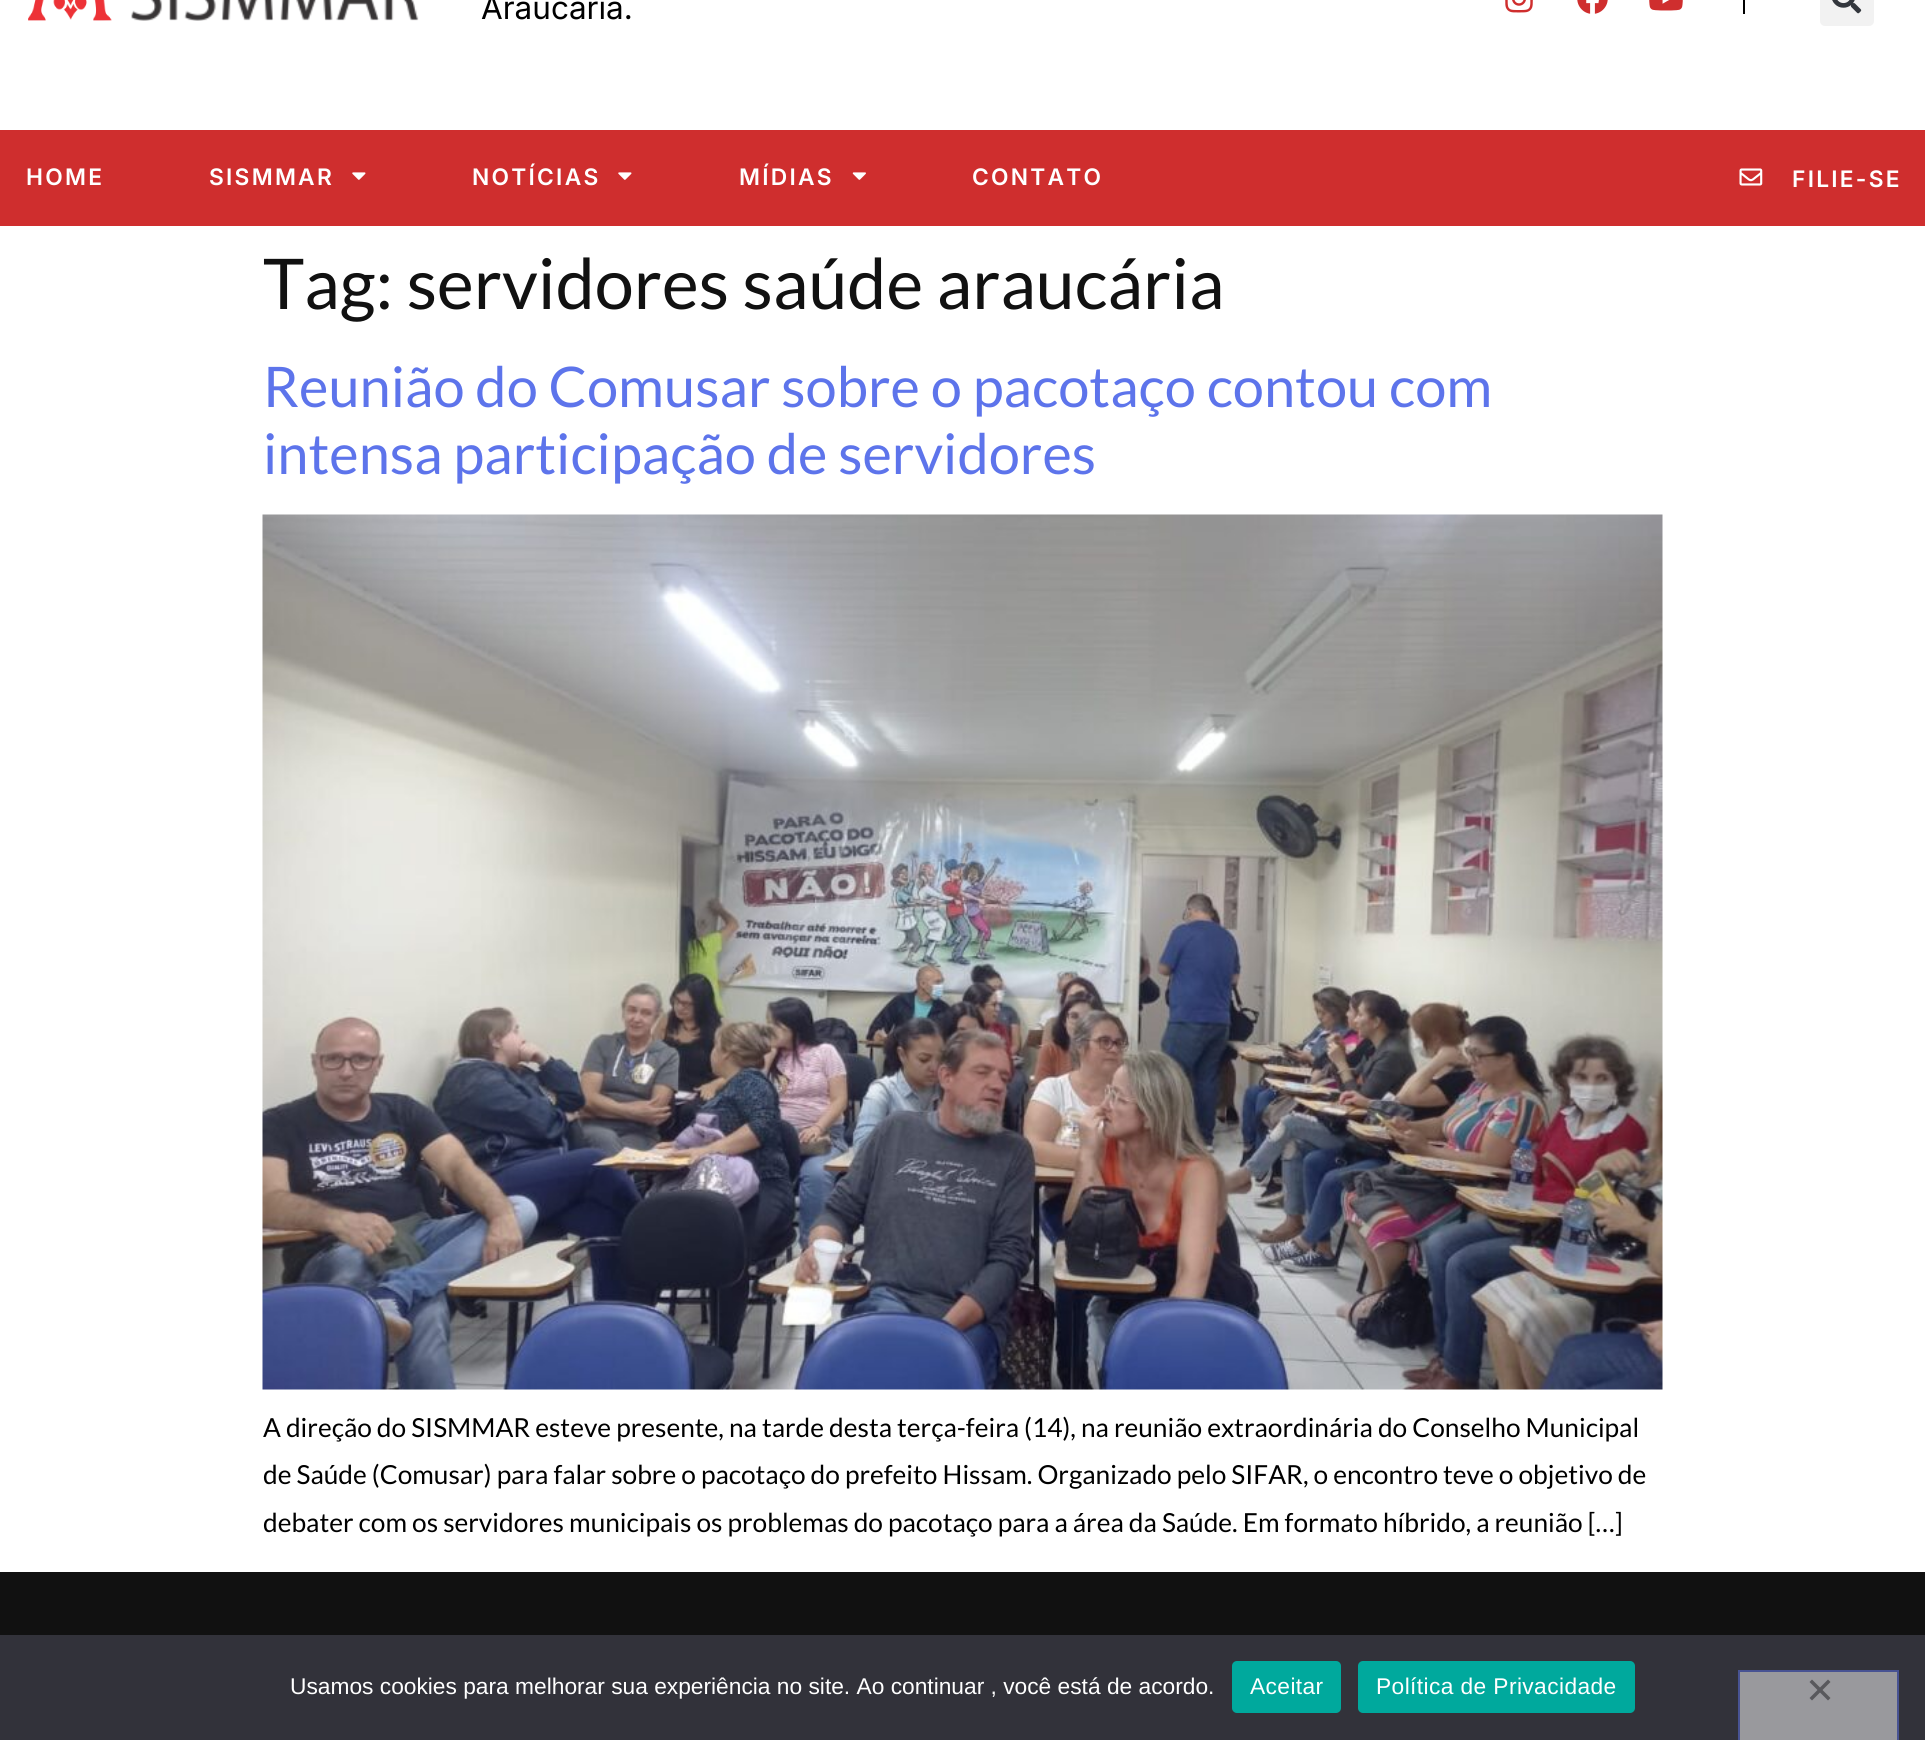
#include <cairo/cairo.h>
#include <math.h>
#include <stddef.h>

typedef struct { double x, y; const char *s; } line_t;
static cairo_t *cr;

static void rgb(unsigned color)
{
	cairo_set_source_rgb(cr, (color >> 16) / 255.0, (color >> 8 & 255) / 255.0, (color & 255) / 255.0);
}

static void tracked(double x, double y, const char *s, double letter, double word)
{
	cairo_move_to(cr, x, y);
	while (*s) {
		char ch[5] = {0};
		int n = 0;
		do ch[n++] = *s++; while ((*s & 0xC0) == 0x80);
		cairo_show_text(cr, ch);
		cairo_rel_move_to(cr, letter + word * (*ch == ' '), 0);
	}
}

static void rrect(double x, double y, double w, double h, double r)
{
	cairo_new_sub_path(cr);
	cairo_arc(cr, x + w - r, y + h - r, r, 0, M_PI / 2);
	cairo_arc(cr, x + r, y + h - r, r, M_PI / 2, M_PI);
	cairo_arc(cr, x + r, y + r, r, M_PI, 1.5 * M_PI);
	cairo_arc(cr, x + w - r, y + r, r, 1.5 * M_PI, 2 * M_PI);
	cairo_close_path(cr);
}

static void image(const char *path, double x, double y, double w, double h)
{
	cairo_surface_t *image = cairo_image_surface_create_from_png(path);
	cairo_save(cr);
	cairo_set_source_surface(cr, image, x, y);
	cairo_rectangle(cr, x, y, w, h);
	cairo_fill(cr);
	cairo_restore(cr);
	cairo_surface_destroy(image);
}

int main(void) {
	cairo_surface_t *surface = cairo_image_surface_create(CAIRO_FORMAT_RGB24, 1925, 1740);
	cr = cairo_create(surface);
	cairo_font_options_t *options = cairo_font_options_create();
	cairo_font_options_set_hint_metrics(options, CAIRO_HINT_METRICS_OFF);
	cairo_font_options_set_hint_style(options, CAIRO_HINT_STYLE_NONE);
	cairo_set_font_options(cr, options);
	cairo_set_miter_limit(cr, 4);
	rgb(0xffffff);
	cairo_paint(cr);
	image("img/1.png", 28, 0, 391, 21);
	rgb(0x000000);
	cairo_rectangle(cr, 1743, 0, 2, 14);
	cairo_fill(cr);
	image("img/2.png", 1505, 0, 28, 13);
	image("img/3.png", 1577, 0, 31, 14);
	image("img/4.png", 1649, 0, 34, 11);
	rgb(0xf2f2f2);
	rrect(1820, -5, 54, 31, 5);
	cairo_fill(cr);
	image("img/5.png", 1832, 0, 30, 14);
	rgb(0xcf2e2e);
	cairo_rectangle(cr, 0, 130, 1925, 96);
	cairo_fill(cr);
	image("img/6.png", 352, 172, 14, 8);
	image("img/6.png", 618, 172, 14, 8);
	image("img/7.png", 852, 172, 14, 8);
	image("img/8.png", 1739, 168, 24, 18);
	image("img/9.png", 262, 514, 1401, 876);
	rgb(0x111111);
	cairo_rectangle(cr, 0, 1572, 1925, 63);
	cairo_fill(cr);
	rgb(0x32323a);
	cairo_rectangle(cr, 0, 1635, 1925, 105);
	cairo_fill(cr);
	rgb(0x00a99d);
	rrect(1232, 1661, 109, 52, 5);
	cairo_fill(cr);
	rrect(1358, 1661, 277, 52, 5);
	cairo_fill(cr);
	rgb(0x99999d);
	cairo_rectangle(cr, 1739, 1671, 159, 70);
	cairo_fill_preserve(cr);
	rgb(0x485393);
	cairo_stroke(cr);
	rgb(0x59595d);
	cairo_new_path(cr);
	cairo_move_to(cr, 1828, 1679.5);
	cairo_line_to(cr, 1830.5, 1682);
	cairo_line_to(cr, 1812, 1700.5);
	cairo_line_to(cr, 1809.5, 1698);
	cairo_close_path(cr);
	cairo_fill(cr);
	cairo_new_path(cr);
	cairo_move_to(cr, 1809.5, 1682);
	cairo_line_to(cr, 1812, 1679.5);
	cairo_line_to(cr, 1830.5, 1698);
	cairo_line_to(cr, 1828, 1700.5);
	cairo_close_path(cr);
	cairo_fill(cr);
	cairo_select_font_face(cr, "Inter", CAIRO_FONT_SLANT_NORMAL, CAIRO_FONT_WEIGHT_NORMAL);
	cairo_set_font_size(cr, 31.5);
	rgb(0x000000);
	cairo_move_to(cr, 481, 19);
	cairo_show_text(cr, "Araucária.");
	cairo_select_font_face(cr, "Inter SemiBold", CAIRO_FONT_SLANT_NORMAL, CAIRO_FONT_WEIGHT_NORMAL);
	cairo_set_font_size(cr, 22.75);
	rgb(0xffffff);
	{
		static const line_t items[] = {
			{26, 185, "HOME"},
			{209, 185, "SISMMAR"},
			{472, 185, "NOTÍCIAS"},
			{739, 185, "MÍDIAS"},
			{972, 185, "CONTATO"},
			{1792, 187, "FILIE-SE"},
		};
		for (size_t i = 0; i < sizeof items / sizeof *items; i++) {
			tracked(items[i].x, items[i].y, items[i].s, 2.25, 0);
		}
	}
	cairo_select_font_face(cr, "Lato", CAIRO_FONT_SLANT_NORMAL, CAIRO_FONT_WEIGHT_NORMAL);
	cairo_set_font_size(cr, 70);
	rgb(0x111111);
	cairo_move_to(cr, 263, 309);
	cairo_show_text(cr, "Tag: servidores saúde araucária");
	cairo_set_font_size(cr, 56);
	rgb(0x5d74eb);
	cairo_move_to(cr, 263, 407);
	cairo_show_text(cr, "Reunião do Comusar sobre o pacotaço contou com");
	cairo_move_to(cr, 263, 474);
	cairo_show_text(cr, "intensa participação de servidores");
	cairo_set_font_size(cr, 26.25);
	rgb(0x000000);
	{
		static const line_t items[] = {
			{263, 1437, "A direção do SISMMAR esteve presente, na tarde desta terça-feira (14), na reunião extraordinária do Conselho Municipal"},
			{263, 1484, "de Saúde (Comusar) para falar sobre o pacotaço do prefeito Hissam. Organizado pelo SIFAR, o encontro teve o objetivo de"},
			{263, 1532, "debater com os servidores municipais os problemas do pacotaço para a área da Saúde. Em formato híbrido, a reunião […]"},
		};
		for (size_t i = 0; i < sizeof items / sizeof *items; i++) {
			cairo_move_to(cr, items[i].x, items[i].y);
			cairo_show_text(cr, items[i].s);
		}
	}
	cairo_select_font_face(cr, "Liberation Sans", CAIRO_FONT_SLANT_NORMAL, CAIRO_FONT_WEIGHT_NORMAL);
	cairo_set_font_size(cr, 22.75);
	rgb(0xffffff);
	cairo_move_to(cr, 290, 1694);
	cairo_show_text(cr, "Usamos cookies para melhorar sua experiência no site. Ao continuar , você está de acordo.");
	tracked(1250, 1694, "Aceitar", 0.4, 0);
	tracked(1376, 1694, "Política de Privacidade", 0.4, 0);
	cairo_surface_write_to_png(surface, "page.png");
	cairo_font_options_destroy(options);
	cairo_destroy(cr);
	cairo_surface_destroy(surface);
	return 0;
}
